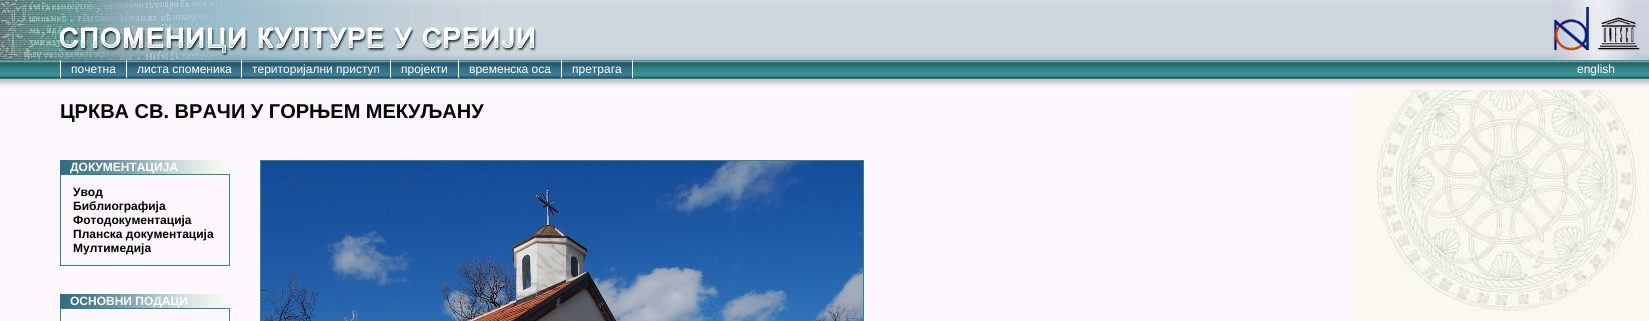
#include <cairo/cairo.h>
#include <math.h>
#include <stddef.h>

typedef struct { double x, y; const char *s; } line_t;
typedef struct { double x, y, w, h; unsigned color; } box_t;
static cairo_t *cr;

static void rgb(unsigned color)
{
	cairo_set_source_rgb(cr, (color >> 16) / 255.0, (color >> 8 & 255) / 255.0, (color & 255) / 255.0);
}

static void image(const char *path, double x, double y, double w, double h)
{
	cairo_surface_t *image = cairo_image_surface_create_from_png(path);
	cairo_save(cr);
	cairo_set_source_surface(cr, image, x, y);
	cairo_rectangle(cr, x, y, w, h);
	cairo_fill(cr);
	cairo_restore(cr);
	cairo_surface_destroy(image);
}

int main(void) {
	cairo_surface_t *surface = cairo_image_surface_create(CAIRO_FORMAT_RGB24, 1649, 321);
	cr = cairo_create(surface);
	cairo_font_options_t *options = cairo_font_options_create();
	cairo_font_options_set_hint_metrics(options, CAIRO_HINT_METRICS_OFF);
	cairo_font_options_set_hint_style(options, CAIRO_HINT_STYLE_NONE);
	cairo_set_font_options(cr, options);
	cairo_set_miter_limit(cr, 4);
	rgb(0xfdf8fd);
	cairo_paint(cr);
	image("img/1.png", 1353, 90, 296, 231);
	image("img/2.png", 0, 0, 1649, 90);
	image("img/3.png", 1552, 0, 97, 60);
	image("img/4.png", 61, 60, 571, 18);
	{
		static const box_t items[] = {
			{60, 60, 1, 18, 0xffffff},
			{126, 60, 1, 18, 0xffffff},
			{241, 60, 1, 18, 0xffffff},
			{390, 60, 1, 18, 0xffffff},
			{458, 60, 1, 18, 0xffffff},
			{561, 60, 1, 18, 0xffffff},
			{632, 60, 1, 18, 0xffffff},
		};
		for (size_t i = 0; i < sizeof items / sizeof *items; i++) {
			rgb(items[i].color);
			cairo_rectangle(cr, items[i].x, items[i].y, items[i].w, items[i].h);
			cairo_fill(cr);
		}
	}
	image("img/5.png", 60, 160, 164, 14);
	cairo_rectangle(cr, 60.5, 174.5, 169, 91);
	rgb(0x338285);
	cairo_set_line_width(cr, 1);
	cairo_stroke(cr);
	image("img/5.png", 60, 294, 164, 14);
	cairo_rectangle(cr, 60.5, 308.5, 169, 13);
	cairo_stroke(cr);
	cairo_rectangle(cr, 260.5, 160.5, 603, 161);
	cairo_stroke(cr);
	image("img/6.png", 261, 161, 602, 160);
	cairo_select_font_face(cr, "Liberation Sans", CAIRO_FONT_SLANT_NORMAL, CAIRO_FONT_WEIGHT_NORMAL);
	cairo_set_font_size(cr, 12);
	rgb(0xffffff);
	{
		static const line_t items[] = {
			{71, 73, "почетна"},
			{137, 73, "листа споменика"},
			{252, 73, "територијални приступ"},
			{401, 73, "пројекти"},
			{469, 73, "временска оса"},
			{572, 73, "претрага"},
			{1577, 73, "english"},
		};
		for (size_t i = 0; i < sizeof items / sizeof *items; i++) {
			cairo_move_to(cr, items[i].x, items[i].y);
			cairo_show_text(cr, items[i].s);
		}
	}
	cairo_select_font_face(cr, "Liberation Sans", CAIRO_FONT_SLANT_NORMAL, CAIRO_FONT_WEIGHT_BOLD);
	cairo_set_font_size(cr, 20);
	rgb(0x000000);
	cairo_move_to(cr, 60, 118);
	cairo_show_text(cr, "ЦРКВА СВ. ВРАЧИ У ГОРЊЕМ МЕКУЉАНУ");
	cairo_set_font_size(cr, 12);
	rgb(0xffffff);
	cairo_move_to(cr, 70, 171);
	cairo_show_text(cr, "ДОКУМЕНТАЦИЈА");
	rgb(0x000000);
	{
		static const line_t items[] = {
			{73, 196, "Увод"},
			{73, 210, "Библиографија"},
			{73, 224, "Фотодокументација"},
			{73, 238, "Планска документација"},
			{73, 252, "Мултимедија"},
		};
		for (size_t i = 0; i < sizeof items / sizeof *items; i++) {
			cairo_move_to(cr, items[i].x, items[i].y);
			cairo_show_text(cr, items[i].s);
		}
	}
	rgb(0xffffff);
	cairo_move_to(cr, 70, 305);
	cairo_show_text(cr, "ОСНОВНИ ПОДАЦИ");
	cairo_surface_write_to_png(surface, "page.png");
	cairo_font_options_destroy(options);
	cairo_destroy(cr);
	cairo_surface_destroy(surface);
	return 0;
}
